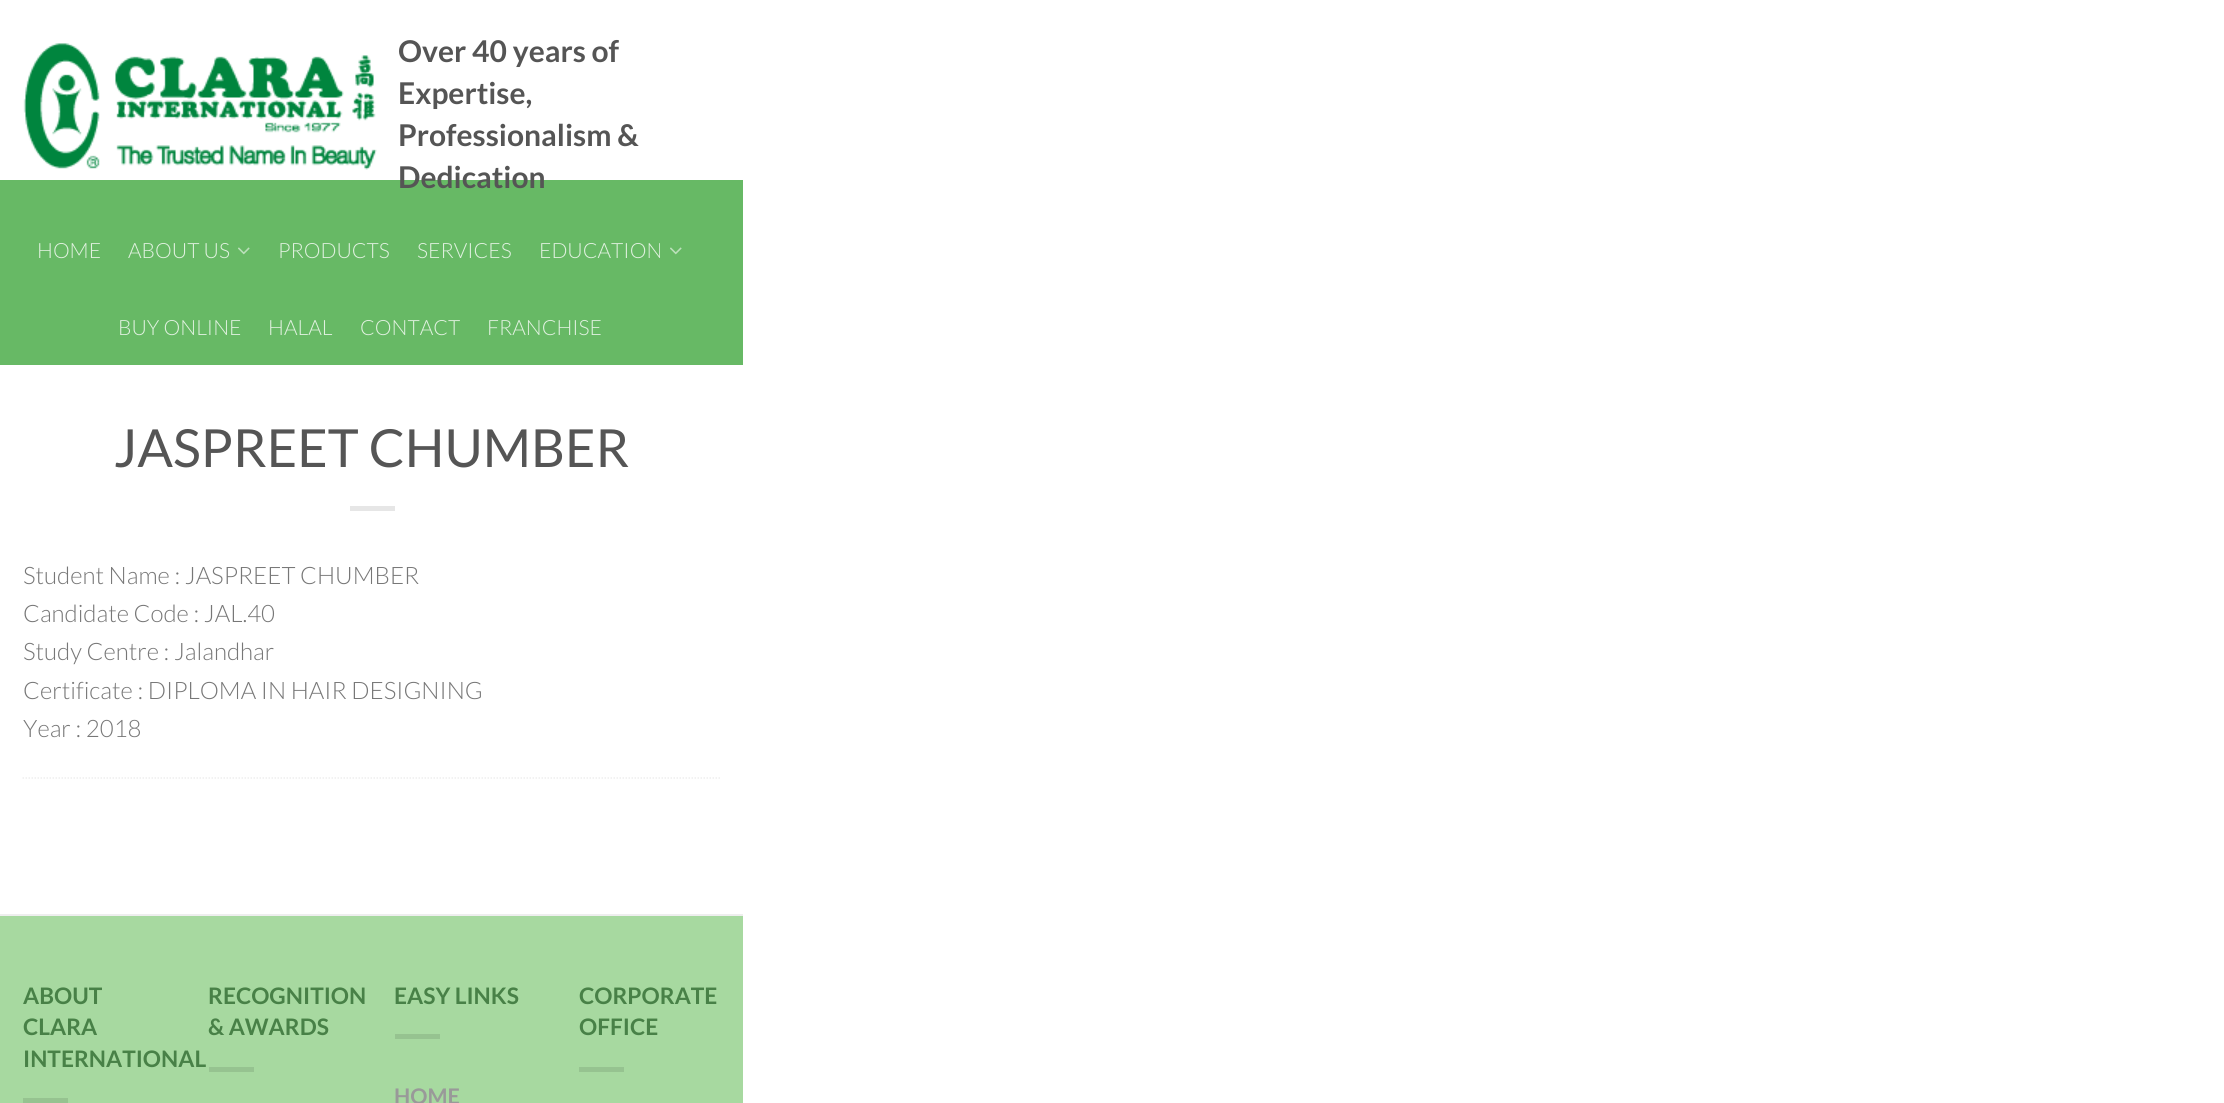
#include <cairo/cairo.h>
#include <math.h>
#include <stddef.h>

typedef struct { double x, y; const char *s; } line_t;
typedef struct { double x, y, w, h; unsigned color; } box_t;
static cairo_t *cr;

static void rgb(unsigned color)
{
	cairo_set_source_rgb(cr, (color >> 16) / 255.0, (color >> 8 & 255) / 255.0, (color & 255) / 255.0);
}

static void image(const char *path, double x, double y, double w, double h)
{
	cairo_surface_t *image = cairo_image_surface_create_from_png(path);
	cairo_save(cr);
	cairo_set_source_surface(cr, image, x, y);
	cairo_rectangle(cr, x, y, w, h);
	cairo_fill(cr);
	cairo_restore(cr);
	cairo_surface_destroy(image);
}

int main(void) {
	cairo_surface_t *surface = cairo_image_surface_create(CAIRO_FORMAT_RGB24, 2224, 1103);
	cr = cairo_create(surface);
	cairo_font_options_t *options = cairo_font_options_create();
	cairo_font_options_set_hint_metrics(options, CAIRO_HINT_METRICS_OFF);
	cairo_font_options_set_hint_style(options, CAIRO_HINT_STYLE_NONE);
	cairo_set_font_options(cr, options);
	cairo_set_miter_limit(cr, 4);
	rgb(0xffffff);
	cairo_paint(cr);
	image("img/1.png", 23, 43, 354, 127);
	rgb(0x67b965);
	cairo_rectangle(cr, 0, 180, 743, 185);
	cairo_fill(cr);
	image("img/2.png", 238, 247, 12, 8);
	image("img/2.png", 670, 247, 12, 8);
	rgb(0xe6e6e6);
	cairo_rectangle(cr, 350, 506, 45, 5);
	cairo_fill(cr);
	cairo_new_path(cr);
	cairo_move_to(cr, 22.5, 778);
	cairo_line_to(cr, 720, 778);
	rgb(0xeeeeee);
	cairo_set_line_width(cr, 1.5);
	cairo_set_dash(cr, (double[]){1.5, 1.5}, 2, 0);
	cairo_stroke(cr);
	{
		static const box_t items[] = {
			{0, 916, 743, 187, 0xa7d9a0},
			{0, 914, 743, 2, 0xeeeeee},
			{23, 1098, 45, 5, 0x96c390},
			{209, 1067, 45, 5, 0x96c390},
			{395, 1034, 45, 5, 0x96c390},
			{579, 1067, 45, 5, 0x96c390},
		};
		for (size_t i = 0; i < sizeof items / sizeof *items; i++) {
			rgb(items[i].color);
			cairo_rectangle(cr, items[i].x, items[i].y, items[i].w, items[i].h);
			cairo_fill(cr);
		}
	}
	cairo_select_font_face(cr, "Lato", CAIRO_FONT_SLANT_NORMAL, CAIRO_FONT_WEIGHT_BOLD);
	cairo_set_font_size(cr, 30);
	rgb(0x555555);
	{
		static const line_t items[] = {
			{398, 62, "Over 40 years of"},
			{398, 104, "Expertise,"},
			{398, 146, "Professionalism &"},
			{398, 188, "Dedication"},
		};
		for (size_t i = 0; i < sizeof items / sizeof *items; i++) {
			cairo_move_to(cr, items[i].x, items[i].y);
			cairo_show_text(cr, items[i].s);
		}
	}
	cairo_select_font_face(cr, "Lato Light", CAIRO_FONT_SLANT_NORMAL, CAIRO_FONT_WEIGHT_NORMAL);
	cairo_set_font_size(cr, 21);
	rgb(0xe1f1e0);
	{
		static const line_t items[] = {
			{37, 258, "HOME"},
			{128, 258, "ABOUT US"},
			{278, 258, "PRODUCTS"},
			{417, 258, "SERVICES"},
			{539, 258, "EDUCATION"},
			{118, 335, "BUY ONLINE"},
			{268, 335, "HALAL"},
			{360, 335, "CONTACT"},
			{487, 335, "FRANCHISE"},
		};
		for (size_t i = 0; i < sizeof items / sizeof *items; i++) {
			cairo_move_to(cr, items[i].x, items[i].y);
			cairo_show_text(cr, items[i].s);
		}
	}
	cairo_select_font_face(cr, "Lato", CAIRO_FONT_SLANT_NORMAL, CAIRO_FONT_WEIGHT_NORMAL);
	cairo_set_font_size(cr, 52.5);
	rgb(0x555555);
	cairo_move_to(cr, 114, 467);
	cairo_show_text(cr, "JASPREET CHUMBER");
	cairo_select_font_face(cr, "Lato Light", CAIRO_FONT_SLANT_NORMAL, CAIRO_FONT_WEIGHT_NORMAL);
	cairo_set_font_size(cr, 24);
	rgb(0x777777);
	{
		static const line_t items[] = {
			{23, 584, "Student Name : JASPREET CHUMBER"},
			{23, 622, "Candidate Code : JAL.40"},
			{23, 660, "Study Centre : Jalandhar"},
			{23, 699, "Certificate : DIPLOMA IN HAIR DESIGNING"},
			{23, 737, "Year : 2018"},
		};
		for (size_t i = 0; i < sizeof items / sizeof *items; i++) {
			cairo_move_to(cr, items[i].x, items[i].y);
			cairo_show_text(cr, items[i].s);
		}
	}
	cairo_select_font_face(cr, "Lato", CAIRO_FONT_SLANT_NORMAL, CAIRO_FONT_WEIGHT_BOLD);
	cairo_set_font_size(cr, 22.75);
	rgb(0x488147);
	{
		static const line_t items[] = {
			{23, 1004, "ABOUT"},
			{23, 1035, "CLARA"},
			{23, 1067, "INTERNATIONAL"},
			{208, 1004, "RECOGNITION"},
			{208, 1035, "& AWARDS"},
			{394, 1004, "EASY LINKS"},
		};
		for (size_t i = 0; i < sizeof items / sizeof *items; i++) {
			cairo_move_to(cr, items[i].x, items[i].y);
			cairo_show_text(cr, items[i].s);
		}
	}
	cairo_set_font_size(cr, 21.5);
	rgb(0x999999);
	cairo_move_to(cr, 394, 1104);
	cairo_show_text(cr, "HOME");
	cairo_set_font_size(cr, 22.75);
	rgb(0x488147);
	cairo_move_to(cr, 579, 1004);
	cairo_show_text(cr, "CORPORATE");
	cairo_move_to(cr, 579, 1035);
	cairo_show_text(cr, "OFFICE");
	cairo_surface_write_to_png(surface, "page.png");
	cairo_font_options_destroy(options);
	cairo_destroy(cr);
	cairo_surface_destroy(surface);
	return 0;
}
